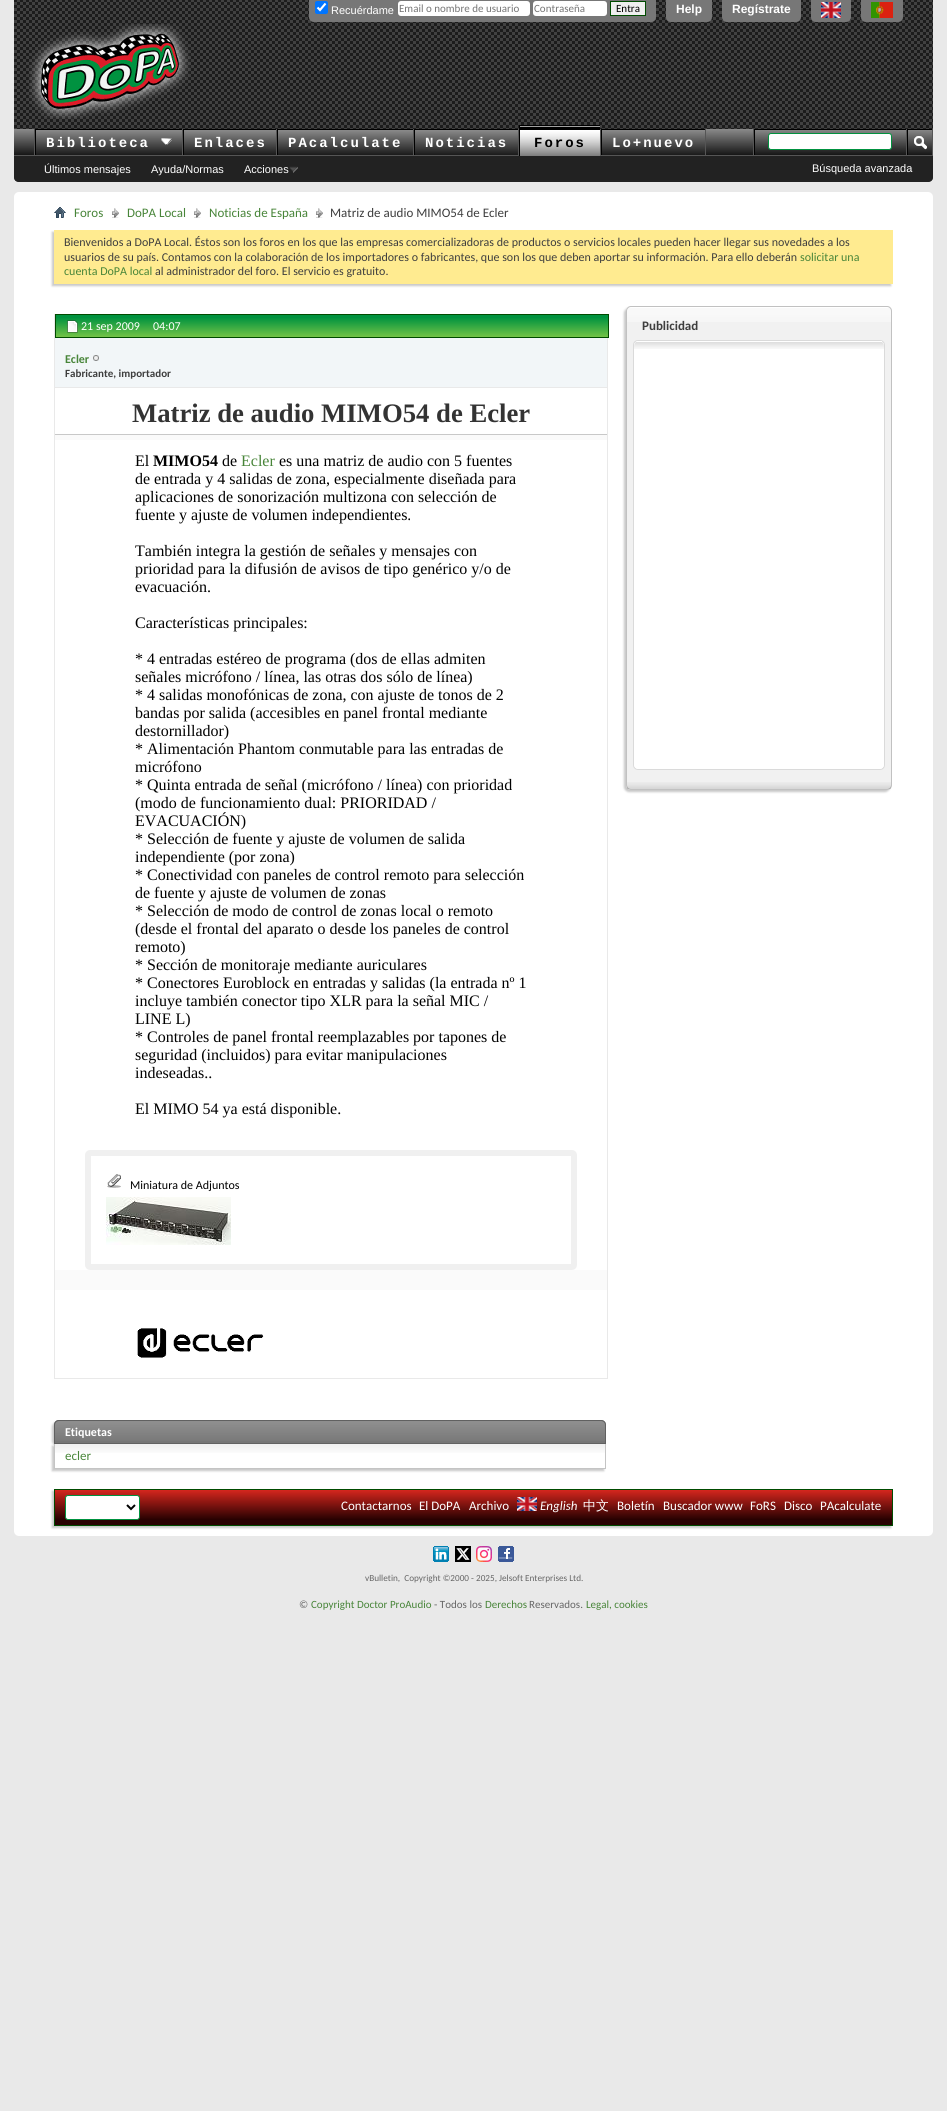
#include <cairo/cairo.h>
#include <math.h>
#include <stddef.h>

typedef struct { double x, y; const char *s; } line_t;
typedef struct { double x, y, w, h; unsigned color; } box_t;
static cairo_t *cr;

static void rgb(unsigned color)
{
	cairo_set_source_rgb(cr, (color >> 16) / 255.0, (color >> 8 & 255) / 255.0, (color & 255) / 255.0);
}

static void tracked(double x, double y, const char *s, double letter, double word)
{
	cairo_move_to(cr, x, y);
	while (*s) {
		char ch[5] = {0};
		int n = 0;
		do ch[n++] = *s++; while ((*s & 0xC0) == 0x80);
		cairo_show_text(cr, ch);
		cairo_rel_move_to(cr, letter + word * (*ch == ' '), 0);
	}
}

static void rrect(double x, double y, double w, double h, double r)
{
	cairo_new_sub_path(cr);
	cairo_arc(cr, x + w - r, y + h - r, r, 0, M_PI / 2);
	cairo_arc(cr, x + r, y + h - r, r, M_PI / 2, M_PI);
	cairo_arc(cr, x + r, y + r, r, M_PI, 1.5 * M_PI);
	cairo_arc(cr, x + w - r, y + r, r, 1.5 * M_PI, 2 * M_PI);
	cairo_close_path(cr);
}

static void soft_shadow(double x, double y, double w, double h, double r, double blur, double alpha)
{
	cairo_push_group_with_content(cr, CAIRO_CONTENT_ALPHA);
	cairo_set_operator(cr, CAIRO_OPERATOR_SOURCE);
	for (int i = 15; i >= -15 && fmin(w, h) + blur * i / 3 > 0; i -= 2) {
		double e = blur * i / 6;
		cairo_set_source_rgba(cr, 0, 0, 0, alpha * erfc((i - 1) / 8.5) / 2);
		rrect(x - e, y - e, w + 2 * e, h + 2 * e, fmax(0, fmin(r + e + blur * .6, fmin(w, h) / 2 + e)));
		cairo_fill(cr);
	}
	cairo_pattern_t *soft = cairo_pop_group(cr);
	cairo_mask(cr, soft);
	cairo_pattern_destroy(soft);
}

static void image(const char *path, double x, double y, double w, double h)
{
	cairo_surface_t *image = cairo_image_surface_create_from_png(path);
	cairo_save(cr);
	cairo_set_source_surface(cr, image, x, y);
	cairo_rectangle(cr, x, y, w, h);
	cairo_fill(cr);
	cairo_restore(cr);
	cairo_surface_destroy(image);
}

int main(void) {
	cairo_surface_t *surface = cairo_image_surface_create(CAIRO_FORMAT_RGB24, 947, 2111);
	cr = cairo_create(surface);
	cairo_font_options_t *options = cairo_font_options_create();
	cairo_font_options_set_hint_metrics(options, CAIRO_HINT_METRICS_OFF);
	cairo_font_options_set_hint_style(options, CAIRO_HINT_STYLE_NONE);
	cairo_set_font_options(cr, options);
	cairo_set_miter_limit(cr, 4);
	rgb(0xe9e9e9);
	cairo_paint(cr);
	image("img/1.png", 14, 0, 919, 182);
	rgb(0x777777);
	cairo_new_path(cr);
	cairo_move_to(cr, 309, -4);
	cairo_line_to(cr, 656, -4);
	cairo_line_to(cr, 656, 17);
	cairo_curve_to(cr, 656, 20, 654, 22, 651, 22);
	cairo_line_to(cr, 314, 22);
	cairo_curve_to(cr, 311, 22, 309, 20, 309, 17);
	cairo_close_path(cr);
	cairo_fill(cr);
	rgb(0x0075ff);
	rrect(315, 1, 13, 13, 2);
	cairo_fill(cr);
	cairo_new_path(cr);
	cairo_move_to(cr, 317.5, 7.5);
	cairo_line_to(cr, 320, 10);
	cairo_line_to(cr, 325.5, 3.5);
	rgb(0xffffff);
	cairo_set_line_width(cr, 2.1);
	cairo_stroke(cr);
	rrect(398, 1, 132, 15, 3);
	cairo_fill(cr);
	rrect(533, 1, 74, 15, 3);
	cairo_fill(cr);
	rgb(0xefefef);
	cairo_rectangle(cr, 610.5, 1.5, 35, 14);
	cairo_fill_preserve(cr);
	rgb(0x004b00);
	cairo_set_line_width(cr, 1);
	cairo_stroke(cr);
	rgb(0x777777);
	cairo_new_path(cr);
	cairo_move_to(cr, 666, -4);
	cairo_line_to(cr, 712, -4);
	cairo_line_to(cr, 712, 17);
	cairo_curve_to(cr, 712, 20, 710, 22, 707, 22);
	cairo_line_to(cr, 671, 22);
	cairo_curve_to(cr, 668, 22, 666, 20, 666, 17);
	cairo_close_path(cr);
	cairo_fill(cr);
	cairo_new_path(cr);
	cairo_move_to(cr, 722, -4);
	cairo_line_to(cr, 801, -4);
	cairo_line_to(cr, 801, 17);
	cairo_curve_to(cr, 801, 20, 799, 22, 796, 22);
	cairo_line_to(cr, 727, 22);
	cairo_curve_to(cr, 724, 22, 722, 20, 722, 17);
	cairo_close_path(cr);
	cairo_fill(cr);
	cairo_new_path(cr);
	cairo_move_to(cr, 811, -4);
	cairo_line_to(cr, 851, -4);
	cairo_line_to(cr, 851, 17);
	cairo_curve_to(cr, 851, 20, 849, 22, 846, 22);
	cairo_line_to(cr, 816, 22);
	cairo_curve_to(cr, 813, 22, 811, 20, 811, 17);
	cairo_close_path(cr);
	cairo_fill(cr);
	image("img/2.png", 821, 2, 20, 16);
	cairo_new_path(cr);
	cairo_move_to(cr, 861, -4);
	cairo_line_to(cr, 903, -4);
	cairo_line_to(cr, 903, 17);
	cairo_curve_to(cr, 903, 20, 901, 22, 898, 22);
	cairo_line_to(cr, 866, 22);
	cairo_curve_to(cr, 863, 22, 861, 20, 861, 17);
	cairo_close_path(cr);
	cairo_fill(cr);
	image("img/3.png", 871, 2, 22, 16);
	image("img/4.png", 28, 24, 163, 95);
	rgb(0x222222);
	cairo_new_path(cr);
	cairo_move_to(cr, 14, 129);
	cairo_line_to(cr, 933, 129);
	cairo_line_to(cr, 933, 177);
	cairo_curve_to(cr, 933, 180, 931, 182, 928, 182);
	cairo_line_to(cr, 19, 182);
	cairo_curve_to(cr, 16, 182, 14, 180, 14, 177);
	cairo_close_path(cr);
	cairo_fill(cr);
	image("img/5.png", 14, 129, 918, 26);
	rgb(0x555555);
	cairo_rectangle(cr, 182, 129, 1, 27);
	cairo_fill(cr);
	cairo_rectangle(cr, 34, 129, 1, 27);
	cairo_fill(cr);
	image("img/6.png", 36, 130, 146, 25);
	rgb(0x000000);
	cairo_rectangle(cr, 35, 129, 147, 1);
	cairo_fill(cr);
	cairo_rectangle(cr, 35, 129, 1, 27);
	cairo_fill(cr);
	image("img/7.png", 161, 138, 11, 7);
	rgb(0x555555);
	cairo_rectangle(cr, 276, 129, 1, 27);
	cairo_fill(cr);
	image("img/8.png", 184, 130, 92, 25);
	{
		static const box_t items[] = {
			{183, 129, 93, 1, 0x000000},
			{183, 129, 1, 27, 0x000000},
			{413, 129, 1, 27, 0x555555},
		};
		for (size_t i = 0; i < sizeof items / sizeof *items; i++) {
			rgb(items[i].color);
			cairo_rectangle(cr, items[i].x, items[i].y, items[i].w, items[i].h);
			cairo_fill(cr);
		}
	}
	image("img/9.png", 278, 130, 135, 25);
	{
		static const box_t items[] = {
			{277, 129, 136, 1, 0x000000},
			{277, 129, 1, 27, 0x000000},
			{518, 129, 1, 27, 0x555555},
		};
		for (size_t i = 0; i < sizeof items / sizeof *items; i++) {
			rgb(items[i].color);
			cairo_rectangle(cr, items[i].x, items[i].y, items[i].w, items[i].h);
			cairo_fill(cr);
		}
	}
	image("img/10.png", 415, 130, 103, 25);
	{
		static const box_t items[] = {
			{414, 129, 104, 1, 0x000000},
			{414, 129, 1, 27, 0x000000},
			{600, 129, 1, 26, 0x555555},
			{705, 129, 1, 27, 0x555555},
			{601, 129, 104, 1, 0x000000},
			{601, 129, 1, 27, 0x000000},
			{14, 155, 919, 1, 0x555555},
			{519, 125, 81, 31, 0x000000},
		};
		for (size_t i = 0; i < sizeof items / sizeof *items; i++) {
			rgb(items[i].color);
			cairo_rectangle(cr, items[i].x, items[i].y, items[i].w, items[i].h);
			cairo_fill(cr);
		}
	}
	image("img/11.png", 520, 126, 80, 30);
	image("img/12.png", 289, 166, 9, 7);
	image("img/10.png", 602, 130, 103, 25);
	{
		static const box_t items[] = {
			{753, 129, 1, 26, 0x555555},
			{754, 129, 152, 1, 0x000000},
			{754, 129, 1, 26, 0x000000},
		};
		for (size_t i = 0; i < sizeof items / sizeof *items; i++) {
			rgb(items[i].color);
			cairo_rectangle(cr, items[i].x, items[i].y, items[i].w, items[i].h);
			cairo_fill(cr);
		}
	}
	rgb(0xffffff);
	rrect(768.5, 133.5, 123, 16, 2.5);
	cairo_fill_preserve(cr);
	rgb(0x00923f);
	cairo_stroke(cr);
	{
		static const box_t items[] = {
			{932, 129, 1, 26, 0x555555},
			{906, 129, 1, 26, 0x555555},
			{907, 129, 25, 1, 0x000000},
			{907, 129, 1, 26, 0x000000},
		};
		for (size_t i = 0; i < sizeof items / sizeof *items; i++) {
			rgb(items[i].color);
			cairo_rectangle(cr, items[i].x, items[i].y, items[i].w, items[i].h);
			cairo_fill(cr);
		}
	}
	image("img/13.png", 914, 136, 13, 14);
	rgb(0xffffff);
	rrect(14, 192, 919, 1344, 5);
	cairo_fill(cr);
	image("img/14.png", 54, 207, 12, 11);
	image("img/15.png", 112, 208, 7, 10);
	image("img/15.png", 194, 208, 7, 10);
	image("img/15.png", 316, 208, 7, 10);
	rgb(0xc8c8c8);
	soft_shadow(52, 232, 839, 54, 0, 1, 1);
	rgb(0xffeb90);
	cairo_rectangle(cr, 54, 230, 839, 54);
	cairo_fill(cr);
	cairo_rectangle(cr, 54.5, 314.5, 553, 1064);
	rgb(0xe9e9e9);
	cairo_stroke(cr);
	rgb(0x00923f);
	cairo_rectangle(cr, 56, 315, 552, 3);
	cairo_fill(cr);
	image("img/16.png", 56, 318, 552, 19);
	cairo_rectangle(cr, 55.5, 314.5, 553, 23);
	rgb(0x004b00);
	cairo_stroke(cr);
	image("img/17.png", 67, 320, 11, 13);
	rgb(0xf2f6f8);
	cairo_rectangle(cr, 55, 338, 552, 49);
	cairo_fill(cr);
	rgb(0xe9e9e9);
	cairo_rectangle(cr, 55, 387, 552, 1);
	cairo_fill(cr);
	image("img/18.png", 93, 355, 6, 6);
	{
		static const box_t items[] = {
			{55, 435, 552, 855, 0xfafafa},
			{55, 434, 552, 1, 0xc8c8c8},
			{55, 440, 552, 830, 0xffffff},
		};
		for (size_t i = 0; i < sizeof items / sizeof *items; i++) {
			rgb(items[i].color);
			cairo_rectangle(cr, items[i].x, items[i].y, items[i].w, items[i].h);
			cairo_fill(cr);
		}
	}
	rrect(88, 1153, 486, 114, 2);
	rgb(0xf0f0f0);
	cairo_set_line_width(cr, 6);
	cairo_stroke(cr);
	image("img/19.png", 107, 1174, 14, 14);
	image("img/20.png", 106, 1197, 125, 48);
	image("img/21.png", 137, 1328, 127, 30);
	rgb(0xc8c8c8);
	soft_shadow(52, 1422, 552, 24, 5, 1, 1);
	rgb(0x757575);
	cairo_new_path(cr);
	cairo_move_to(cr, 59, 1420);
	cairo_line_to(cr, 601, 1420);
	cairo_curve_to(cr, 604, 1420, 606, 1422, 606, 1425);
	cairo_line_to(cr, 606, 1444);
	cairo_line_to(cr, 54, 1444);
	cairo_line_to(cr, 54, 1425);
	cairo_curve_to(cr, 54, 1422, 56, 1420, 59, 1420);
	cairo_close_path(cr);
	cairo_fill(cr);
	image("img/22.png", 54, 1421, 552, 20);
	cairo_new_path(cr);
	cairo_move_to(cr, 59, 1420.5);
	cairo_line_to(cr, 601, 1420.5);
	cairo_curve_to(cr, 603.5, 1420.5, 605.5, 1422.5, 605.5, 1425);
	cairo_line_to(cr, 605.5, 1443.5);
	cairo_line_to(cr, 54.5, 1443.5);
	cairo_line_to(cr, 54.5, 1425);
	cairo_curve_to(cr, 54.5, 1422.5, 56.5, 1420.5, 59, 1420.5);
	cairo_close_path(cr);
	rgb(0x606060);
	cairo_set_line_width(cr, 1);
	cairo_stroke(cr);
	rgb(0xc8c8c8);
	soft_shadow(52, 1446, 552, 25, 0, 1, 1);
	rgb(0xffffff);
	cairo_rectangle(cr, 55, 1444, 550, 24);
	cairo_fill(cr);
	image("img/23.png", 55, 1444, 550, 9);
	{
		static const box_t items[] = {
			{605, 1444, 1, 25, 0xc4c4c4},
			{54, 1468, 552, 1, 0xc4c4c4},
			{54, 1444, 1, 25, 0xc4c4c4},
		};
		for (size_t i = 0; i < sizeof items / sizeof *items; i++) {
			rgb(items[i].color);
			cairo_rectangle(cr, items[i].x, items[i].y, items[i].w, items[i].h);
			cairo_fill(cr);
		}
	}
	rgb(0xc8c8c8);
	soft_shadow(624, 308, 266, 484, 5, 1, 1);
	rgb(0xf1f1f1);
	rrect(626, 306, 266, 484, 5);
	cairo_fill(cr);
	image("img/24.png", 626, 307, 266, 15);
	rrect(626.5, 306.5, 265, 483, 4.5);
	rgb(0xc1c1c1);
	cairo_stroke(cr);
	rgb(0xffffff);
	rrect(633.5, 340.5, 251, 429, 4.5);
	cairo_fill_preserve(cr);
	rgb(0xdadada);
	cairo_stroke(cr);
	rgb(0xffffff);
	rrect(634, 341, 250, 428, 5);
	cairo_fill(cr);
	image("img/25.png", 634, 342, 250, 7);
	cairo_rectangle(cr, 881, 341, 1, 1);
	cairo_fill(cr);
	image("img/26.png", 627, 782, 264, 7);
	rgb(0xc8c8c8);
	soft_shadow(52, 1491, 839, 37, 0, 1, 1);
	rgb(0x280101);
	cairo_rectangle(cr, 55, 1519, 837, 6);
	cairo_fill(cr);
	image("img/27.png", 55, 1490, 837, 29);
	cairo_rectangle(cr, 54.5, 1489.5, 838, 36);
	rgb(0x004b00);
	cairo_stroke(cr);
	rgb(0xffffff);
	rrect(65.5, 1495.5, 74, 24, 2.5);
	cairo_fill_preserve(cr);
	rgb(0x00923f);
	cairo_stroke(cr);
	cairo_new_path(cr);
	cairo_move_to(cr, 127, 1505);
	cairo_line_to(cr, 131, 1509);
	cairo_line_to(cr, 135, 1505);
	rgb(0x000000);
	cairo_set_line_width(cr, 2);
	cairo_stroke(cr);
	image("img/28.png", 517, 1497, 20, 14);
	image("img/29.png", 433, 1546, 16, 16);
	image("img/30.png", 455, 1546, 16, 16);
	image("img/31.png", 476, 1546, 16, 16);
	image("img/32.png", 498, 1546, 16, 16);
	cairo_select_font_face(cr, "Liberation Sans", CAIRO_FONT_SLANT_NORMAL, CAIRO_FONT_WEIGHT_NORMAL);
	cairo_set_font_size(cr, 11);
	rgb(0xffffff);
	cairo_move_to(cr, 331, 14);
	cairo_show_text(cr, "Recuérdame");
	cairo_select_font_face(cr, "Carlito", CAIRO_FONT_SLANT_NORMAL, CAIRO_FONT_WEIGHT_NORMAL);
	rgb(0x757575);
	cairo_move_to(cr, 399, 12);
	cairo_show_text(cr, "Email o nombre de usuario");
	cairo_move_to(cr, 534, 12);
	cairo_show_text(cr, "Contraseña");
	rgb(0x000000);
	cairo_move_to(cr, 616, 12);
	cairo_show_text(cr, "Entra");
	cairo_select_font_face(cr, "Liberation Sans", CAIRO_FONT_SLANT_NORMAL, CAIRO_FONT_WEIGHT_BOLD);
	cairo_set_font_size(cr, 12);
	rgb(0xffffff);
	cairo_move_to(cr, 676, 13);
	cairo_show_text(cr, "Help");
	cairo_move_to(cr, 732, 13);
	cairo_show_text(cr, "Regístrate");
	cairo_select_font_face(cr, "Liberation Mono", CAIRO_FONT_SLANT_NORMAL, CAIRO_FONT_WEIGHT_BOLD);
	cairo_set_font_size(cr, 14);
	{
		static const line_t items[] = {
			{46, 147, "Biblioteca"},
			{194, 147, "Enlaces"},
			{288, 147, "PAcalculate"},
			{425, 147, "Noticias"},
		};
		for (size_t i = 0; i < sizeof items / sizeof *items; i++) {
			tracked(items[i].x, items[i].y, items[i].s, 2, 0);
		}
	}
	rgb(0x000000);
	tracked(534, 147, "Foros", 2, 0);
	cairo_select_font_face(cr, "Liberation Sans", CAIRO_FONT_SLANT_NORMAL, CAIRO_FONT_WEIGHT_NORMAL);
	cairo_set_font_size(cr, 11);
	rgb(0xffffff);
	{
		static const line_t items[] = {
			{44, 173, "Últimos mensajes"},
			{151, 173, "Ayuda/Normas"},
			{244, 173, "Acciones"},
		};
		for (size_t i = 0; i < sizeof items / sizeof *items; i++) {
			cairo_move_to(cr, items[i].x, items[i].y);
			cairo_show_text(cr, items[i].s);
		}
	}
	cairo_select_font_face(cr, "Liberation Mono", CAIRO_FONT_SLANT_NORMAL, CAIRO_FONT_WEIGHT_BOLD);
	cairo_set_font_size(cr, 14);
	tracked(612, 147, "Lo+nuevo", 2, 0);
	cairo_select_font_face(cr, "Liberation Sans", CAIRO_FONT_SLANT_NORMAL, CAIRO_FONT_WEIGHT_NORMAL);
	cairo_set_font_size(cr, 11);
	cairo_move_to(cr, 812, 172);
	cairo_show_text(cr, "Búsqueda avanzada");
	cairo_select_font_face(cr, "Carlito", CAIRO_FONT_SLANT_NORMAL, CAIRO_FONT_WEIGHT_NORMAL);
	cairo_set_font_size(cr, 13);
	rgb(0x488539);
	{
		static const line_t items[] = {
			{74, 217, "Foros"},
			{127, 217, "DoPA Local"},
			{209, 217, "Noticias de España"},
		};
		for (size_t i = 0; i < sizeof items / sizeof *items; i++) {
			cairo_move_to(cr, items[i].x, items[i].y);
			cairo_show_text(cr, items[i].s);
		}
	}
	rgb(0x3e3e3e);
	cairo_move_to(cr, 330, 217);
	cairo_show_text(cr, "Matriz de audio MIMO54 de Ecler");
	cairo_set_font_size(cr, 12);
	cairo_move_to(cr, 64, 246);
	cairo_show_text(cr, "Bienvenidos a DoPA Local. Éstos son los foros en los que las empresas comercializadoras de productos o servicios locales pueden hacer llegar sus novedades a los");
	cairo_move_to(cr, 64, 261);
	cairo_show_text(cr, "usuarios de su país. Contamos con la colaboración de los importadores o fabricantes, que son los que deben aportar su información. Para ello deberán");
	rgb(0x488539);
	cairo_move_to(cr, 800, 261);
	cairo_show_text(cr, "solicitar una");
	cairo_move_to(cr, 64, 275);
	cairo_show_text(cr, "cuenta DoPA local");
	rgb(0x3e3e3e);
	cairo_move_to(cr, 155, 275);
	cairo_show_text(cr, "al administrador del foro. El servicio es gratuito.");
	rgb(0xffffff);
	cairo_move_to(cr, 81, 330);
	cairo_show_text(cr, "21 sep 2009");
	cairo_move_to(cr, 153, 330);
	cairo_show_text(cr, "04:07");
	cairo_select_font_face(cr, "Carlito", CAIRO_FONT_SLANT_NORMAL, CAIRO_FONT_WEIGHT_BOLD);
	rgb(0x488539);
	cairo_move_to(cr, 65, 363);
	cairo_show_text(cr, "Ecler");
	cairo_set_font_size(cr, 11);
	rgb(0x3e3e3e);
	cairo_move_to(cr, 65, 377);
	cairo_show_text(cr, "Fabricante, importador");
	cairo_select_font_face(cr, "Liberation Serif", CAIRO_FONT_SLANT_NORMAL, CAIRO_FONT_WEIGHT_BOLD);
	cairo_set_font_size(cr, 26.7);
	rgb(0x333333);
	cairo_move_to(cr, 132, 422);
	cairo_show_text(cr, "Matriz de audio MIMO54 de Ecler");
	cairo_select_font_face(cr, "Liberation Serif", CAIRO_FONT_SLANT_NORMAL, CAIRO_FONT_WEIGHT_NORMAL);
	cairo_set_font_size(cr, 16);
	rgb(0x000000);
	cairo_move_to(cr, 135, 466);
	cairo_show_text(cr, "El");
	cairo_select_font_face(cr, "Liberation Serif", CAIRO_FONT_SLANT_NORMAL, CAIRO_FONT_WEIGHT_BOLD);
	cairo_move_to(cr, 153, 466);
	cairo_show_text(cr, "MIMO54");
	cairo_select_font_face(cr, "Liberation Serif", CAIRO_FONT_SLANT_NORMAL, CAIRO_FONT_WEIGHT_NORMAL);
	cairo_move_to(cr, 222, 466);
	cairo_show_text(cr, "de");
	rgb(0x488539);
	cairo_move_to(cr, 241, 466);
	cairo_show_text(cr, "Ecler");
	rgb(0x000000);
	{
		static const line_t items[] = {
			{279, 466, "es una matriz de audio con 5 fuentes"},
			{135, 484, "de entrada y 4 salidas de zona, especialmente diseñada para"},
			{135, 502, "aplicaciones de sonorización multizona con selección de"},
			{135, 520, "fuente y ajuste de volumen independientes."},
			{135, 556, "También integra la gestión de señales y mensajes con"},
			{135, 574, "prioridad para la difusión de avisos de tipo genérico y/o de"},
			{135, 592, "evacuación."},
			{135, 628, "Características principales:"},
			{135, 664, "* 4 entradas estéreo de programa (dos de ellas admiten"},
			{135, 682, "señales micrófono / línea, las otras dos sólo de línea)"},
			{135, 700, "* 4 salidas monofónicas de zona, con ajuste de tonos de 2"},
			{135, 718, "bandas por salida (accesibles en panel frontal mediante"},
			{135, 736, "destornillador)"},
			{135, 754, "* Alimentación Phantom conmutable para las entradas de"},
			{135, 772, "micrófono"},
			{135, 790, "* Quinta entrada de señal (micrófono / línea) con prioridad"},
			{135, 808, "(modo de funcionamiento dual: PRIORIDAD /"},
			{135, 826, "EVACUACIÓN)"},
			{135, 844, "* Selección de fuente y ajuste de volumen de salida"},
			{135, 862, "independiente (por zona)"},
			{135, 880, "* Conectividad con paneles de control remoto para selección"},
			{135, 898, "de fuente y ajuste de volumen de zonas"},
			{135, 916, "* Selección de modo de control de zonas local o remoto"},
			{135, 934, "(desde el frontal del aparato o desde los paneles de control"},
			{135, 952, "remoto)"},
			{135, 970, "* Sección de monitoraje mediante auriculares"},
			{135, 988, "* Conectores Euroblock en entradas y salidas (la entrada nº 1"},
			{135, 1006, "incluye también conector tipo XLR para la señal MIC /"},
			{135, 1024, "LINE L)"},
			{135, 1042, "* Controles de panel frontal reemplazables por tapones de"},
			{135, 1060, "seguridad (incluidos) para evitar manipulaciones"},
			{135, 1078, "indeseadas.."},
			{135, 1114, "El MIMO 54 ya está disponible."},
		};
		for (size_t i = 0; i < sizeof items / sizeof *items; i++) {
			cairo_move_to(cr, items[i].x, items[i].y);
			cairo_show_text(cr, items[i].s);
		}
	}
	cairo_select_font_face(cr, "Carlito", CAIRO_FONT_SLANT_NORMAL, CAIRO_FONT_WEIGHT_NORMAL);
	cairo_set_font_size(cr, 12);
	cairo_move_to(cr, 130, 1189);
	cairo_show_text(cr, "Miniatura de Adjuntos");
	cairo_select_font_face(cr, "Carlito", CAIRO_FONT_SLANT_NORMAL, CAIRO_FONT_WEIGHT_BOLD);
	rgb(0xffffff);
	cairo_move_to(cr, 65, 1436);
	cairo_show_text(cr, "Etiquetas");
	cairo_select_font_face(cr, "Carlito", CAIRO_FONT_SLANT_NORMAL, CAIRO_FONT_WEIGHT_NORMAL);
	cairo_set_font_size(cr, 13);
	rgb(0x488539);
	cairo_move_to(cr, 65, 1460);
	cairo_show_text(cr, "ecler");
	cairo_select_font_face(cr, "Carlito", CAIRO_FONT_SLANT_NORMAL, CAIRO_FONT_WEIGHT_BOLD);
	rgb(0x3e3e3e);
	cairo_move_to(cr, 642, 330);
	cairo_show_text(cr, "Publicidad");
	cairo_select_font_face(cr, "Carlito", CAIRO_FONT_SLANT_NORMAL, CAIRO_FONT_WEIGHT_NORMAL);
	rgb(0xffffff);
	{
		static const line_t items[] = {
			{341, 1510, "Contactarnos"},
			{419, 1510, "El DoPA"},
			{469, 1510, "Archivo"},
		};
		for (size_t i = 0; i < sizeof items / sizeof *items; i++) {
			cairo_move_to(cr, items[i].x, items[i].y);
			cairo_show_text(cr, items[i].s);
		}
	}
	cairo_select_font_face(cr, "Carlito", CAIRO_FONT_SLANT_ITALIC, CAIRO_FONT_WEIGHT_NORMAL);
	cairo_move_to(cr, 540, 1510);
	cairo_show_text(cr, "English");
	cairo_select_font_face(cr, "WenQuanYi Zen Hei Medium", CAIRO_FONT_SLANT_NORMAL, CAIRO_FONT_WEIGHT_NORMAL);
	cairo_move_to(cr, 583, 1510);
	cairo_show_text(cr, "中文");
	cairo_select_font_face(cr, "Carlito", CAIRO_FONT_SLANT_NORMAL, CAIRO_FONT_WEIGHT_NORMAL);
	{
		static const line_t items[] = {
			{617, 1510, "Boletín"},
			{663, 1510, "Buscador www"},
			{750, 1510, "FoRS"},
			{784, 1510, "Disco"},
			{820, 1510, "PAcalculate"},
		};
		for (size_t i = 0; i < sizeof items / sizeof *items; i++) {
			cairo_move_to(cr, items[i].x, items[i].y);
			cairo_show_text(cr, items[i].s);
		}
	}
	cairo_set_font_size(cr, 9.2);
	rgb(0x666666);
	cairo_move_to(cr, 365, 1581);
	cairo_show_text(cr, "vBulletin,  Copyright ©2000 - 2025, Jelsoft Enterprises Ltd.");
	cairo_set_font_size(cr, 11);
	cairo_move_to(cr, 299, 1608);
	cairo_show_text(cr, "©");
	rgb(0x488539);
	cairo_move_to(cr, 311, 1608);
	cairo_show_text(cr, "Copyright Doctor ProAudio");
	rgb(0x666666);
	cairo_move_to(cr, 434, 1608);
	cairo_show_text(cr, "- Todos los");
	rgb(0x488539);
	cairo_move_to(cr, 485, 1608);
	cairo_show_text(cr, "Derechos");
	rgb(0x666666);
	cairo_move_to(cr, 529, 1608);
	cairo_show_text(cr, "Reservados.");
	rgb(0x488539);
	cairo_move_to(cr, 586, 1608);
	cairo_show_text(cr, "Legal, cookies");
	cairo_surface_write_to_png(surface, "page.png");
	cairo_font_options_destroy(options);
	cairo_destroy(cr);
	cairo_surface_destroy(surface);
	return 0;
}
